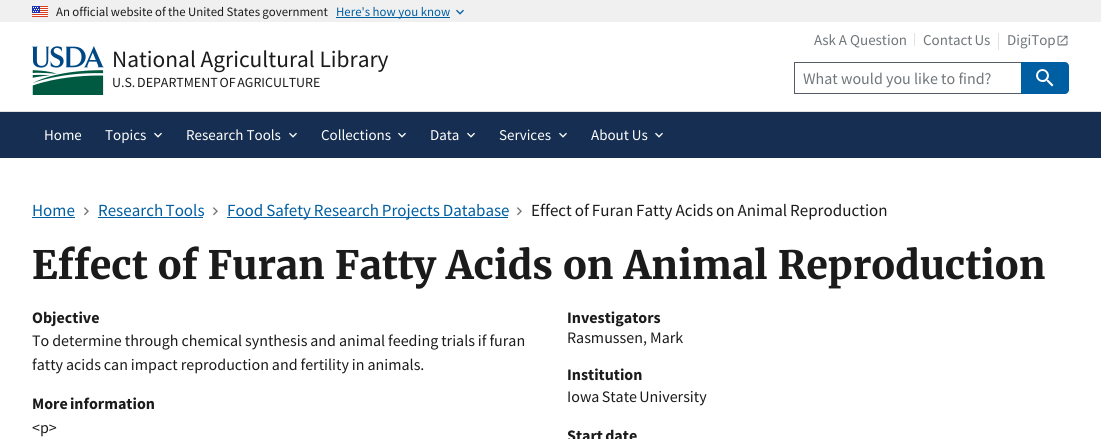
#include <cairo/cairo.h>
#include <math.h>
#include <stddef.h>

typedef struct { double x, y; const char *s; } line_t;
typedef struct { double x, y, w, h; unsigned color; } box_t;
static cairo_t *cr;

static void rgb(unsigned color)
{
	cairo_set_source_rgb(cr, (color >> 16) / 255.0, (color >> 8 & 255) / 255.0, (color & 255) / 255.0);
}

static void tracked(double x, double y, const char *s, double letter, double word)
{
	cairo_move_to(cr, x, y);
	while (*s) {
		char ch[5] = {0};
		int n = 0;
		do ch[n++] = *s++; while ((*s & 0xC0) == 0x80);
		cairo_show_text(cr, ch);
		cairo_rel_move_to(cr, letter + word * (*ch == ' '), 0);
	}
}

static void image(const char *path, double x, double y, double w, double h)
{
	cairo_surface_t *image = cairo_image_surface_create_from_png(path);
	cairo_save(cr);
	cairo_set_source_surface(cr, image, x, y);
	cairo_rectangle(cr, x, y, w, h);
	cairo_fill(cr);
	cairo_restore(cr);
	cairo_surface_destroy(image);
}

int main(void) {
	cairo_surface_t *surface = cairo_image_surface_create(CAIRO_FORMAT_RGB24, 1101, 439);
	cr = cairo_create(surface);
	cairo_font_options_t *options = cairo_font_options_create();
	cairo_font_options_set_hint_metrics(options, CAIRO_HINT_METRICS_OFF);
	cairo_font_options_set_hint_style(options, CAIRO_HINT_STYLE_NONE);
	cairo_set_font_options(cr, options);
	cairo_set_miter_limit(cr, 4);
	rgb(0xffffff);
	cairo_paint(cr);
	rgb(0xf0f0f0);
	cairo_rectangle(cr, 0, 0, 1101, 22);
	cairo_fill(cr);
	image("img/1.png", 32, 6, 16, 11);
	rgb(0x005ea2);
	cairo_rectangle(cr, 336, 17, 114, 1);
	cairo_fill(cr);
	image("img/2.png", 456, 9, 8, 6);
	{
		static const box_t items[] = {
			{0, 112, 1101, 46, 0x162e51},
			{0, 111, 1101, 1, 0xdfe1e2},
			{914, 33, 1, 13, 0xdfe1e2},
			{998, 33, 1, 17, 0xdfe1e2},
		};
		for (size_t i = 0; i < sizeof items / sizeof *items; i++) {
			rgb(items[i].color);
			cairo_rectangle(cr, items[i].x, items[i].y, items[i].w, items[i].h);
			cairo_fill(cr);
		}
	}
	image("img/3.png", 1057, 35, 11, 11);
	{
		static const box_t items[] = {
			{794, 62, 227, 1, 0x565c65},
			{794, 93, 227, 1, 0x565c65},
			{794, 62, 1, 32, 0x565c65},
		};
		for (size_t i = 0; i < sizeof items / sizeof *items; i++) {
			rgb(items[i].color);
			cairo_rectangle(cr, items[i].x, items[i].y, items[i].w, items[i].h);
			cairo_fill(cr);
		}
	}
	rgb(0x005ea2);
	cairo_new_path(cr);
	cairo_move_to(cr, 1021, 62);
	cairo_line_to(cr, 1065, 62);
	cairo_curve_to(cr, 1067, 62, 1069, 64, 1069, 66);
	cairo_line_to(cr, 1069, 90);
	cairo_curve_to(cr, 1069, 92, 1067, 94, 1065, 94);
	cairo_line_to(cr, 1021, 94);
	cairo_close_path(cr);
	cairo_fill(cr);
	image("img/4.png", 1036, 69, 18, 18);
	image("img/5.png", 154, 132, 8, 6);
	image("img/5.png", 289, 132, 8, 6);
	image("img/5.png", 398, 132, 8, 6);
	image("img/5.png", 467, 132, 8, 6);
	image("img/5.png", 559, 132, 8, 6);
	image("img/5.png", 655, 132, 8, 6);
	image("img/6.png", 32, 46, 72, 49);
	cairo_rectangle(cr, 32, 217, 43, 1);
	cairo_fill(cr);
	image("img/7.png", 84, 207, 5, 9);
	cairo_rectangle(cr, 98, 217, 105, 1);
	cairo_fill(cr);
	image("img/7.png", 213, 207, 5, 9);
	cairo_rectangle(cr, 227, 217, 281, 1);
	cairo_fill(cr);
	image("img/7.png", 517, 207, 5, 9);
	cairo_select_font_face(cr, "Source Sans Pro", CAIRO_FONT_SLANT_NORMAL, CAIRO_FONT_WEIGHT_NORMAL);
	cairo_set_font_size(cr, 12.8);
	rgb(0x1b1b1b);
	tracked(56, 16, "An official website of the United States government", 0, -0.25);
	rgb(0x005ea2);
	cairo_move_to(cr, 336, 16);
	cairo_show_text(cr, "Here's how you know");
	cairo_set_font_size(cr, 15);
	rgb(0x71767a);
	cairo_move_to(cr, 814, 45);
	cairo_show_text(cr, "Ask A Question");
	tracked(923, 45, "Contact Us", 0, -1);
	cairo_move_to(cr, 1007, 45);
	cairo_show_text(cr, "DigiTop");
	cairo_set_font_size(cr, 16);
	cairo_move_to(cr, 803, 84);
	cairo_show_text(cr, "What would you like to find?");
	cairo_set_font_size(cr, 15);
	rgb(0xffffff);
	{
		static const line_t items[] = {
			{44, 140, "Home"},
			{105, 140, "Topics"},
			{186, 140, "Research Tools"},
			{321, 140, "Collections"},
			{430, 140, "Data"},
			{499, 140, "Services"},
			{591, 140, "About Us"},
		};
		for (size_t i = 0; i < sizeof items / sizeof *items; i++) {
			cairo_move_to(cr, items[i].x, items[i].y);
			cairo_show_text(cr, items[i].s);
		}
	}
	cairo_set_font_size(cr, 23.4);
	rgb(0x1b1b1b);
	cairo_move_to(cr, 112, 67);
	cairo_show_text(cr, "National Agricultural Library");
	cairo_set_font_size(cr, 13.9);
	tracked(112, 87, "U.S. DEPARTMENT OF AGRICULTURE", 0, -1);
	cairo_set_font_size(cr, 17);
	rgb(0x005ea2);
	cairo_move_to(cr, 32, 216);
	cairo_show_text(cr, "Home");
	tracked(98, 216, "Research Tools", 0, -1);
	tracked(227, 216, "Food Safety Research Projects Database", 0, -0.5);
	rgb(0x1b1b1b);
	tracked(531, 216, "Effect of Furan Fatty Acids on Animal Reproduction", 0, -0.5);
	cairo_select_font_face(cr, "Merriweather", CAIRO_FONT_SLANT_NORMAL, CAIRO_FONT_WEIGHT_BOLD);
	cairo_set_font_size(cr, 39.05);
	cairo_move_to(cr, 32, 279);
	cairo_show_text(cr, "Effect of Furan Fatty Acids on Animal Reproduction");
	cairo_select_font_face(cr, "Source Sans Pro", CAIRO_FONT_SLANT_NORMAL, CAIRO_FONT_WEIGHT_BOLD);
	cairo_set_font_size(cr, 16);
	cairo_move_to(cr, 32, 323);
	cairo_show_text(cr, "Objective");
	cairo_select_font_face(cr, "Source Sans Pro", CAIRO_FONT_SLANT_NORMAL, CAIRO_FONT_WEIGHT_NORMAL);
	tracked(32, 346, "To determine through chemical synthesis and animal feeding trials if furan", 0, -0.25);
	tracked(32, 370, "fatty acids can impact reproduction and fertility in animals.", 0, -0.25);
	cairo_select_font_face(cr, "Source Sans Pro", CAIRO_FONT_SLANT_NORMAL, CAIRO_FONT_WEIGHT_BOLD);
	tracked(32, 409, "More information", 0, -1);
	cairo_select_font_face(cr, "Source Sans Pro", CAIRO_FONT_SLANT_NORMAL, CAIRO_FONT_WEIGHT_NORMAL);
	cairo_move_to(cr, 32, 433);
	cairo_show_text(cr, "<p>");
	cairo_select_font_face(cr, "Source Sans Pro", CAIRO_FONT_SLANT_NORMAL, CAIRO_FONT_WEIGHT_BOLD);
	cairo_move_to(cr, 567, 323);
	cairo_show_text(cr, "Investigators");
	cairo_select_font_face(cr, "Source Sans Pro", CAIRO_FONT_SLANT_NORMAL, CAIRO_FONT_WEIGHT_NORMAL);
	cairo_move_to(cr, 567, 343);
	cairo_show_text(cr, "Rasmussen, Mark");
	cairo_select_font_face(cr, "Source Sans Pro", CAIRO_FONT_SLANT_NORMAL, CAIRO_FONT_WEIGHT_BOLD);
	cairo_move_to(cr, 567, 380);
	cairo_show_text(cr, "Institution");
	cairo_select_font_face(cr, "Source Sans Pro", CAIRO_FONT_SLANT_NORMAL, CAIRO_FONT_WEIGHT_NORMAL);
	tracked(567, 402, "Iowa State University", 0, -1);
	cairo_select_font_face(cr, "Source Sans Pro", CAIRO_FONT_SLANT_NORMAL, CAIRO_FONT_WEIGHT_BOLD);
	tracked(567, 441, "Start date", 0, -1);
	cairo_surface_write_to_png(surface, "page.png");
	cairo_font_options_destroy(options);
	cairo_destroy(cr);
	cairo_surface_destroy(surface);
	return 0;
}
